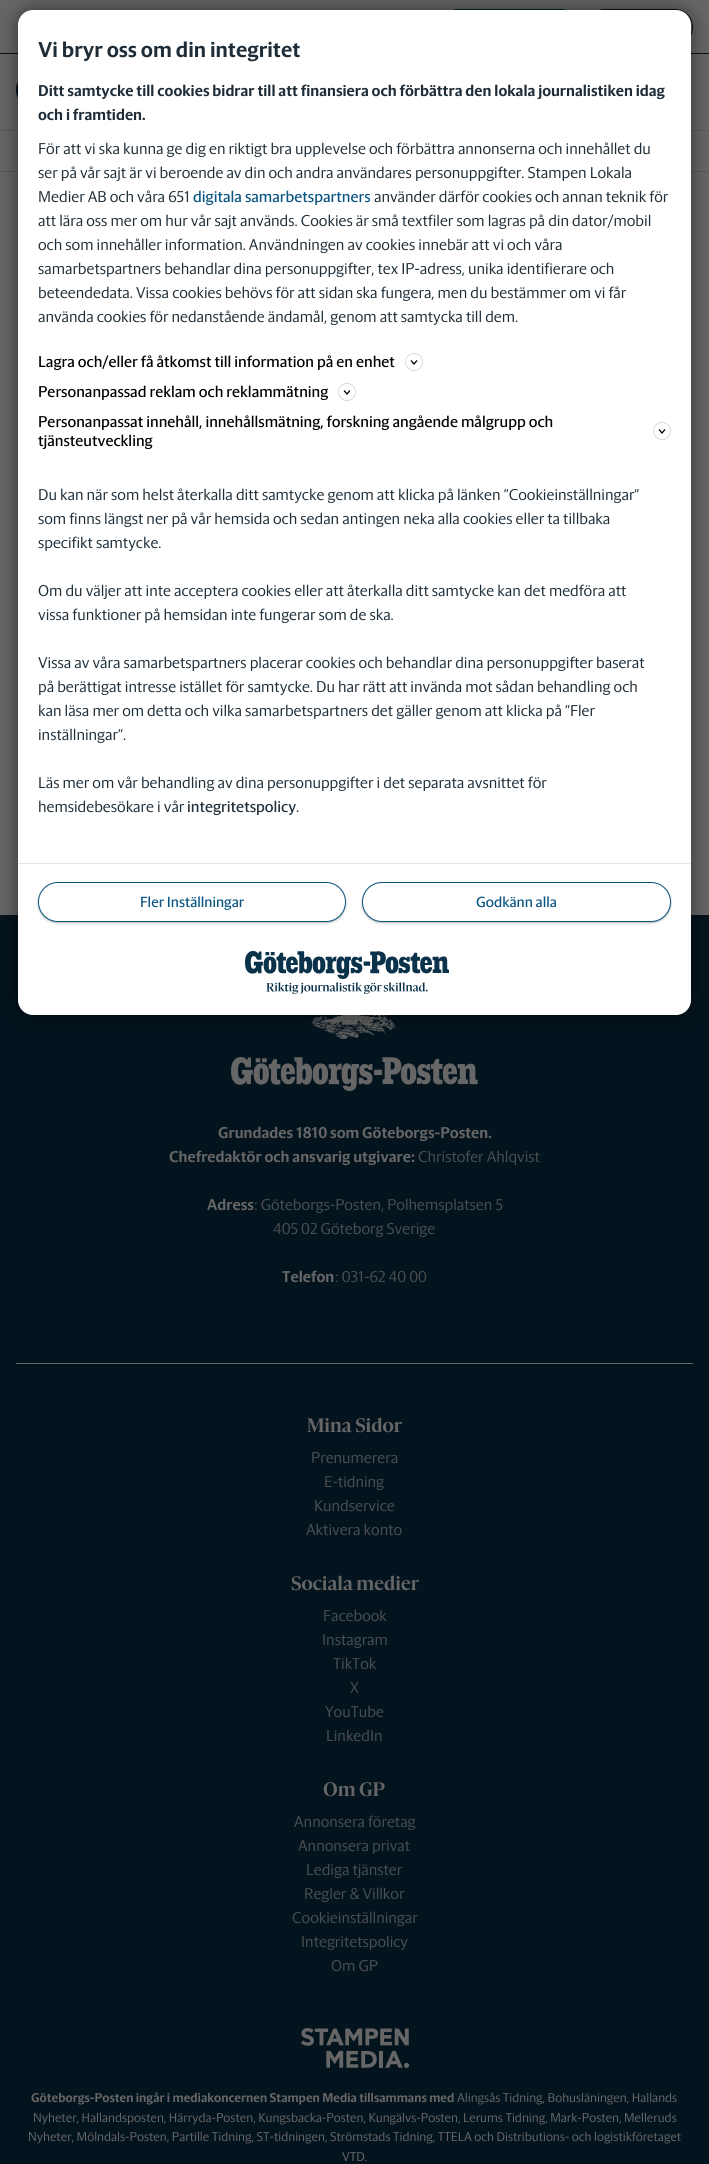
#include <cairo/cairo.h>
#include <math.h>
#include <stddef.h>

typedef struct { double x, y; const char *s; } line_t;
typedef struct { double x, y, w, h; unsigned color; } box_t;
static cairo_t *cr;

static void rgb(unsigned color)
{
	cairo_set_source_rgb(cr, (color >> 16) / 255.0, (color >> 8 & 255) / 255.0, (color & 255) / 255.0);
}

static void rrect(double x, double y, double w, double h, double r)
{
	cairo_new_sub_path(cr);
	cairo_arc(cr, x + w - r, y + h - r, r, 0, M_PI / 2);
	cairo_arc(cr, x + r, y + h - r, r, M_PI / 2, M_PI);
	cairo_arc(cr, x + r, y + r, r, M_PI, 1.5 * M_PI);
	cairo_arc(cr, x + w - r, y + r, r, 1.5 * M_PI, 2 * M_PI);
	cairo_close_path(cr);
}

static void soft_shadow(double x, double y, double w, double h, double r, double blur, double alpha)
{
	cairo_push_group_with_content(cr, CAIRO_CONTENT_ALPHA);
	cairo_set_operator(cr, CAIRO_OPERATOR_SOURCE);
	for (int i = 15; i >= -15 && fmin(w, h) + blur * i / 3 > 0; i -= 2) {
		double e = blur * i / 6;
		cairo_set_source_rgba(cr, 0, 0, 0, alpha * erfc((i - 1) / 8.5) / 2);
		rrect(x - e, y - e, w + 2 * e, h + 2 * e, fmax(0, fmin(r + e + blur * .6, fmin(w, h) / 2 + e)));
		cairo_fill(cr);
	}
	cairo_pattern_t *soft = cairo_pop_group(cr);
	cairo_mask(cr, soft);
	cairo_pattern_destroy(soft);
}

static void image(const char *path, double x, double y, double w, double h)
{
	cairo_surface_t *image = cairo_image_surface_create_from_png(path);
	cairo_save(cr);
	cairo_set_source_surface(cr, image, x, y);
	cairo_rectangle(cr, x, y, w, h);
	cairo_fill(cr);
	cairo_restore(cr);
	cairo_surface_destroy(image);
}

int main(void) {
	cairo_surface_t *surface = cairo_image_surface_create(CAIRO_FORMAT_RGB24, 709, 2164);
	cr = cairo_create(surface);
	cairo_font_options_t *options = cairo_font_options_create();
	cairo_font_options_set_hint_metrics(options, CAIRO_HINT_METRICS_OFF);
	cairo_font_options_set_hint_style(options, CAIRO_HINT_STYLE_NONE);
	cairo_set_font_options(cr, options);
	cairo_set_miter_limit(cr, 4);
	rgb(0x04141e);
	cairo_paint(cr);
	{
		static const box_t items[] = {
			{0, 0, 709, 171, 0x666666},
			{0, 171, 709, 1, 0x585a5a},
			{0, 53, 709, 1, 0x04141e},
		};
		for (size_t i = 0; i < sizeof items / sizeof *items; i++) {
			rgb(items[i].color);
			cairo_rectangle(cr, items[i].x, items[i].y, items[i].w, items[i].h);
			cairo_fill(cr);
		}
	}
	rrect(440.5, 9.5, 138, 35, 17.5);
	rgb(0x002a20);
	cairo_set_line_width(cr, 1);
	cairo_stroke(cr);
	rrect(587.5, 9.5, 105, 35, 17.5);
	rgb(0x04141e);
	cairo_stroke(cr);
	image("img/2.png", 16, 82, 2, 16);
	rgb(0x585a5a);
	cairo_rectangle(cr, 0, 130, 709, 1);
	cairo_fill(cr);
	rgb(0x666666);
	cairo_rectangle(cr, 0, 172, 709, 743);
	cairo_fill(cr);
	image("img/3.png", 311, 1015, 85, 24);
	rgb(0x000000);
	soft_shadow(18, 10, 673, 1005, 15, 10, 0.5);
	rgb(0xffffff);
	rrect(18, 10, 673, 1005, 15);
	cairo_fill(cr);
	cairo_new_path(cr);
	cairo_move_to(cr, 411, 360.5);
	cairo_line_to(cr, 414, 364);
	cairo_line_to(cr, 417, 360.5);
	rgb(0x000000);
	cairo_set_line_width(cr, 1.3);
	cairo_stroke(cr);
	cairo_arc(cr, 414, 362, 8.5, 0, 2 * M_PI);
	rgb(0xc4c4c4);
	cairo_set_line_width(cr, 0.6);
	cairo_stroke(cr);
	cairo_new_path(cr);
	cairo_move_to(cr, 344, 390.5);
	cairo_line_to(cr, 347, 394);
	cairo_line_to(cr, 350, 390.5);
	rgb(0x000000);
	cairo_set_line_width(cr, 1.3);
	cairo_stroke(cr);
	cairo_arc(cr, 347, 392, 8.5, 0, 2 * M_PI);
	rgb(0xc4c4c4);
	cairo_set_line_width(cr, 0.6);
	cairo_stroke(cr);
	cairo_new_path(cr);
	cairo_move_to(cr, 659, 429.5);
	cairo_line_to(cr, 662, 433);
	cairo_line_to(cr, 665, 429.5);
	rgb(0x000000);
	cairo_set_line_width(cr, 1.3);
	cairo_stroke(cr);
	cairo_arc(cr, 662, 431, 8.5, 0, 2 * M_PI);
	rgb(0xc4c4c4);
	cairo_set_line_width(cr, 0.6);
	cairo_stroke(cr);
	rgb(0xe6e6e6);
	cairo_rectangle(cr, 18, 863, 673, 1);
	cairo_fill(cr);
	rgb(0x000000);
	soft_shadow(38, 883, 308, 40, 20, 1, 0.3);
	rgb(0xffffff);
	rrect(38.5, 882.5, 307, 39, 19.5);
	cairo_fill_preserve(cr);
	rgb(0x0a5582);
	cairo_set_line_width(cr, 1);
	cairo_stroke(cr);
	rgb(0x000000);
	soft_shadow(362, 883, 309, 40, 20, 1, 0.3);
	rgb(0xffffff);
	rrect(362.5, 882.5, 308, 39, 19.5);
	cairo_fill_preserve(cr);
	rgb(0x0a5582);
	cairo_stroke(cr);
	image("img/1.png", 245, 951, 204, 43);
	image("img/4.png", 231, 1057, 247, 34);
	rgb(0x666666);
	cairo_rectangle(cr, 16, 1363, 677, 1);
	cairo_fill(cr);
	image("img/5.png", 301, 2028, 108, 40);
	cairo_select_font_face(cr, "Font", CAIRO_FONT_SLANT_NORMAL, CAIRO_FONT_WEIGHT_BOLD);
	cairo_set_font_size(cr, 22);
	rgb(0x1e2d37);
	cairo_move_to(cr, 38, 57);
	cairo_show_text(cr, "Vi bryr oss om din integritet");
	cairo_set_font_size(cr, 16);
	cairo_move_to(cr, 38, 96);
	cairo_show_text(cr, "Ditt samtycke till cookies bidrar till att finansiera och förbättra den lokala journalistiken idag");
	cairo_move_to(cr, 38, 120);
	cairo_show_text(cr, "och i framtiden.");
	cairo_select_font_face(cr, "Font Light", CAIRO_FONT_SLANT_NORMAL, CAIRO_FONT_WEIGHT_NORMAL);
	{
		static const line_t items[] = {
			{38, 154, "För att vi ska kunna ge dig en riktigt bra upplevelse och förbättra annonserna och innehållet du"},
			{38, 178, "ser på vår sajt är vi beroende av din och andra användares personuppgifter. Stampen Lokala"},
			{38, 202, "Medier AB och våra 651"},
		};
		for (size_t i = 0; i < sizeof items / sizeof *items; i++) {
			cairo_move_to(cr, items[i].x, items[i].y);
			cairo_show_text(cr, items[i].s);
		}
	}
	cairo_select_font_face(cr, "Font Medium", CAIRO_FONT_SLANT_NORMAL, CAIRO_FONT_WEIGHT_NORMAL);
	rgb(0x0a5582);
	cairo_move_to(cr, 193, 202);
	cairo_show_text(cr, "digitala samarbetspartners");
	cairo_select_font_face(cr, "Font Light", CAIRO_FONT_SLANT_NORMAL, CAIRO_FONT_WEIGHT_NORMAL);
	rgb(0x1e2d37);
	{
		static const line_t items[] = {
			{374, 202, "använder därför cookies och annan teknik för"},
			{38, 226, "att lära oss mer om hur vår sajt används. Cookies är små textfiler som lagras på din dator/mobil"},
			{38, 250, "och som innehåller information. Användningen av cookies innebär att vi och våra"},
			{38, 274, "samarbetspartners behandlar dina personuppgifter, tex IP-adress, unika identifierare och"},
			{38, 298, "beteendedata. Vissa cookies behövs för att sidan ska fungera, men du bestämmer om vi får"},
			{38, 322, "använda cookies för nedanstående ändamål, genom att samtycka till dem."},
		};
		for (size_t i = 0; i < sizeof items / sizeof *items; i++) {
			cairo_move_to(cr, items[i].x, items[i].y);
			cairo_show_text(cr, items[i].s);
		}
	}
	cairo_select_font_face(cr, "Font Medium", CAIRO_FONT_SLANT_NORMAL, CAIRO_FONT_WEIGHT_NORMAL);
	rgb(0x000000);
	{
		static const line_t items[] = {
			{38, 367, "Lagra och/eller få åtkomst till information på en enhet"},
			{38, 397, "Personanpassad reklam och reklammätning"},
			{38, 427, "Personanpassat innehåll, innehållsmätning, forskning angående målgrupp och"},
			{38, 446, "tjänsteutveckling"},
		};
		for (size_t i = 0; i < sizeof items / sizeof *items; i++) {
			cairo_move_to(cr, items[i].x, items[i].y);
			cairo_show_text(cr, items[i].s);
		}
	}
	cairo_select_font_face(cr, "Font Light", CAIRO_FONT_SLANT_NORMAL, CAIRO_FONT_WEIGHT_NORMAL);
	rgb(0x1e2d37);
	{
		static const line_t items[] = {
			{38, 500, "Du kan när som helst återkalla ditt samtycke genom att klicka på länken \"Cookieinställningar\""},
			{38, 524, "som finns längst ner på vår hemsida och sedan antingen neka alla cookies eller ta tillbaka"},
			{38, 548, "specifikt samtycke."},
			{38, 596, "Om du väljer att inte acceptera cookies eller att återkalla ditt samtycke kan det medföra att"},
			{38, 620, "vissa funktioner på hemsidan inte fungerar som de ska."},
			{38, 668, "Vissa av våra samarbetspartners placerar cookies och behandlar dina personuppgifter baserat"},
			{38, 692, "på berättigat intresse istället för samtycke. Du har rätt att invända mot sådan behandling och"},
			{38, 716, "kan läsa mer om detta och vilka samarbetspartners det gäller genom att klicka på \"Fler"},
			{38, 740, "inställningar\"."},
			{38, 788, "Läs mer om vår behandling av dina personuppgifter i det separata avsnittet för"},
			{38, 812, "hemsidebesökare i vår"},
		};
		for (size_t i = 0; i < sizeof items / sizeof *items; i++) {
			cairo_move_to(cr, items[i].x, items[i].y);
			cairo_show_text(cr, items[i].s);
		}
	}
	cairo_select_font_face(cr, "Font Medium", CAIRO_FONT_SLANT_NORMAL, CAIRO_FONT_WEIGHT_NORMAL);
	cairo_move_to(cr, 187, 812);
	cairo_show_text(cr, "integritetspolicy");
	cairo_select_font_face(cr, "Font Light", CAIRO_FONT_SLANT_NORMAL, CAIRO_FONT_WEIGHT_NORMAL);
	cairo_move_to(cr, 296, 812);
	cairo_show_text(cr, ".");
	cairo_select_font_face(cr, "Font Medium", CAIRO_FONT_SLANT_NORMAL, CAIRO_FONT_WEIGHT_NORMAL);
	cairo_set_font_size(cr, 15);
	rgb(0x0a5582);
	cairo_move_to(cr, 140, 907);
	cairo_show_text(cr, "Fler Inställningar");
	cairo_move_to(cr, 476, 907);
	cairo_show_text(cr, "Godkänn alla");
	cairo_select_font_face(cr, "Font", CAIRO_FONT_SLANT_NORMAL, CAIRO_FONT_WEIGHT_BOLD);
	cairo_set_font_size(cr, 16);
	rgb(0x666666);
	cairo_move_to(cr, 218, 1138);
	cairo_show_text(cr, "Grundades 1810 som Göteborgs-Posten.");
	cairo_move_to(cr, 169, 1162);
	cairo_show_text(cr, "Chefredaktör och ansvarig utgivare:");
	cairo_select_font_face(cr, "Font Light", CAIRO_FONT_SLANT_NORMAL, CAIRO_FONT_WEIGHT_NORMAL);
	rgb(0x494e50);
	cairo_move_to(cr, 418, 1162);
	cairo_show_text(cr, "Christofer Ahlqvist");
	cairo_select_font_face(cr, "Font", CAIRO_FONT_SLANT_NORMAL, CAIRO_FONT_WEIGHT_BOLD);
	rgb(0x666666);
	cairo_move_to(cr, 207, 1210);
	cairo_show_text(cr, "Adress");
	cairo_select_font_face(cr, "Font Light", CAIRO_FONT_SLANT_NORMAL, CAIRO_FONT_WEIGHT_NORMAL);
	rgb(0x494e50);
	cairo_move_to(cr, 254, 1210);
	cairo_show_text(cr, ": Göteborgs-Posten, Polhemsplatsen 5");
	cairo_move_to(cr, 273, 1234);
	cairo_show_text(cr, "405 02 Göteborg Sverige");
	cairo_select_font_face(cr, "Font", CAIRO_FONT_SLANT_NORMAL, CAIRO_FONT_WEIGHT_BOLD);
	rgb(0x666666);
	cairo_move_to(cr, 282, 1282);
	cairo_show_text(cr, "Telefon");
	cairo_select_font_face(cr, "Font Light", CAIRO_FONT_SLANT_NORMAL, CAIRO_FONT_WEIGHT_NORMAL);
	rgb(0x494e50);
	cairo_move_to(cr, 335, 1282);
	cairo_show_text(cr, ": 031-62 40 00");
	cairo_select_font_face(cr, "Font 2", CAIRO_FONT_SLANT_NORMAL, CAIRO_FONT_WEIGHT_BOLD);
	cairo_set_font_size(cr, 20);
	rgb(0x666666);
	cairo_move_to(cr, 307, 1432);
	cairo_show_text(cr, "Mina Sidor");
	cairo_select_font_face(cr, "Font Light", CAIRO_FONT_SLANT_NORMAL, CAIRO_FONT_WEIGHT_NORMAL);
	cairo_set_font_size(cr, 16);
	rgb(0x494e50);
	{
		static const line_t items[] = {
			{311, 1463, "Prenumerera"},
			{324, 1487, "E-tidning"},
			{314, 1511, "Kundservice"},
			{306, 1535, "Aktivera konto"},
		};
		for (size_t i = 0; i < sizeof items / sizeof *items; i++) {
			cairo_move_to(cr, items[i].x, items[i].y);
			cairo_show_text(cr, items[i].s);
		}
	}
	cairo_select_font_face(cr, "Font 2", CAIRO_FONT_SLANT_NORMAL, CAIRO_FONT_WEIGHT_BOLD);
	cairo_set_font_size(cr, 20);
	rgb(0x666666);
	cairo_move_to(cr, 291, 1590);
	cairo_show_text(cr, "Sociala medier");
	cairo_select_font_face(cr, "Font Light", CAIRO_FONT_SLANT_NORMAL, CAIRO_FONT_WEIGHT_NORMAL);
	cairo_set_font_size(cr, 16);
	rgb(0x494e50);
	{
		static const line_t items[] = {
			{323, 1621, "Facebook"},
			{322, 1645, "Instagram"},
			{333, 1669, "TikTok"},
			{350, 1693, "X"},
			{325, 1717, "YouTube"},
			{326, 1741, "LinkedIn"},
		};
		for (size_t i = 0; i < sizeof items / sizeof *items; i++) {
			cairo_move_to(cr, items[i].x, items[i].y);
			cairo_show_text(cr, items[i].s);
		}
	}
	cairo_select_font_face(cr, "Font 2", CAIRO_FONT_SLANT_NORMAL, CAIRO_FONT_WEIGHT_BOLD);
	cairo_set_font_size(cr, 20);
	rgb(0x666666);
	cairo_move_to(cr, 323, 1796);
	cairo_show_text(cr, "Om GP");
	cairo_select_font_face(cr, "Font Light", CAIRO_FONT_SLANT_NORMAL, CAIRO_FONT_WEIGHT_NORMAL);
	cairo_set_font_size(cr, 16);
	rgb(0x494e50);
	{
		static const line_t items[] = {
			{294, 1827, "Annonsera företag"},
			{298, 1851, "Annonsera privat"},
			{306, 1875, "Lediga tjänster"},
			{304, 1899, "Regler & Villkor"},
			{292, 1923, "Cookieinställningar"},
			{301, 1947, "Integritetspolicy"},
			{331, 1971, "Om GP"},
		};
		for (size_t i = 0; i < sizeof items / sizeof *items; i++) {
			cairo_move_to(cr, items[i].x, items[i].y);
			cairo_show_text(cr, items[i].s);
		}
	}
	cairo_select_font_face(cr, "Font", CAIRO_FONT_SLANT_NORMAL, CAIRO_FONT_WEIGHT_BOLD);
	cairo_set_font_size(cr, 13);
	rgb(0x666666);
	cairo_move_to(cr, 31, 2102);
	cairo_show_text(cr, "Göteborgs-Posten ingår i mediakoncernen Stampen Media tillsammans med");
	cairo_select_font_face(cr, "Font Light", CAIRO_FONT_SLANT_NORMAL, CAIRO_FONT_WEIGHT_NORMAL);
	{
		static const line_t items[] = {
			{457, 2102, "Alingsås Tidning, Bohusläningen, Hallands"},
			{33, 2122, "Nyheter, Hallandsposten, Härryda-Posten, Kungsbacka-Posten, Kungälvs-Posten, Lerums Tidning, Mark-Posten, Melleruds"},
			{28, 2141, "Nyheter, Mölndals-Posten, Partille Tidning, ST-tidningen, Strömstads Tidning, TTELA och Distributions- och logistikföretaget"},
			{342, 2161, "VTD."},
		};
		for (size_t i = 0; i < sizeof items / sizeof *items; i++) {
			cairo_move_to(cr, items[i].x, items[i].y);
			cairo_show_text(cr, items[i].s);
		}
	}
	cairo_surface_write_to_png(surface, "page.png");
	cairo_font_options_destroy(options);
	cairo_destroy(cr);
	cairo_surface_destroy(surface);
	return 0;
}
